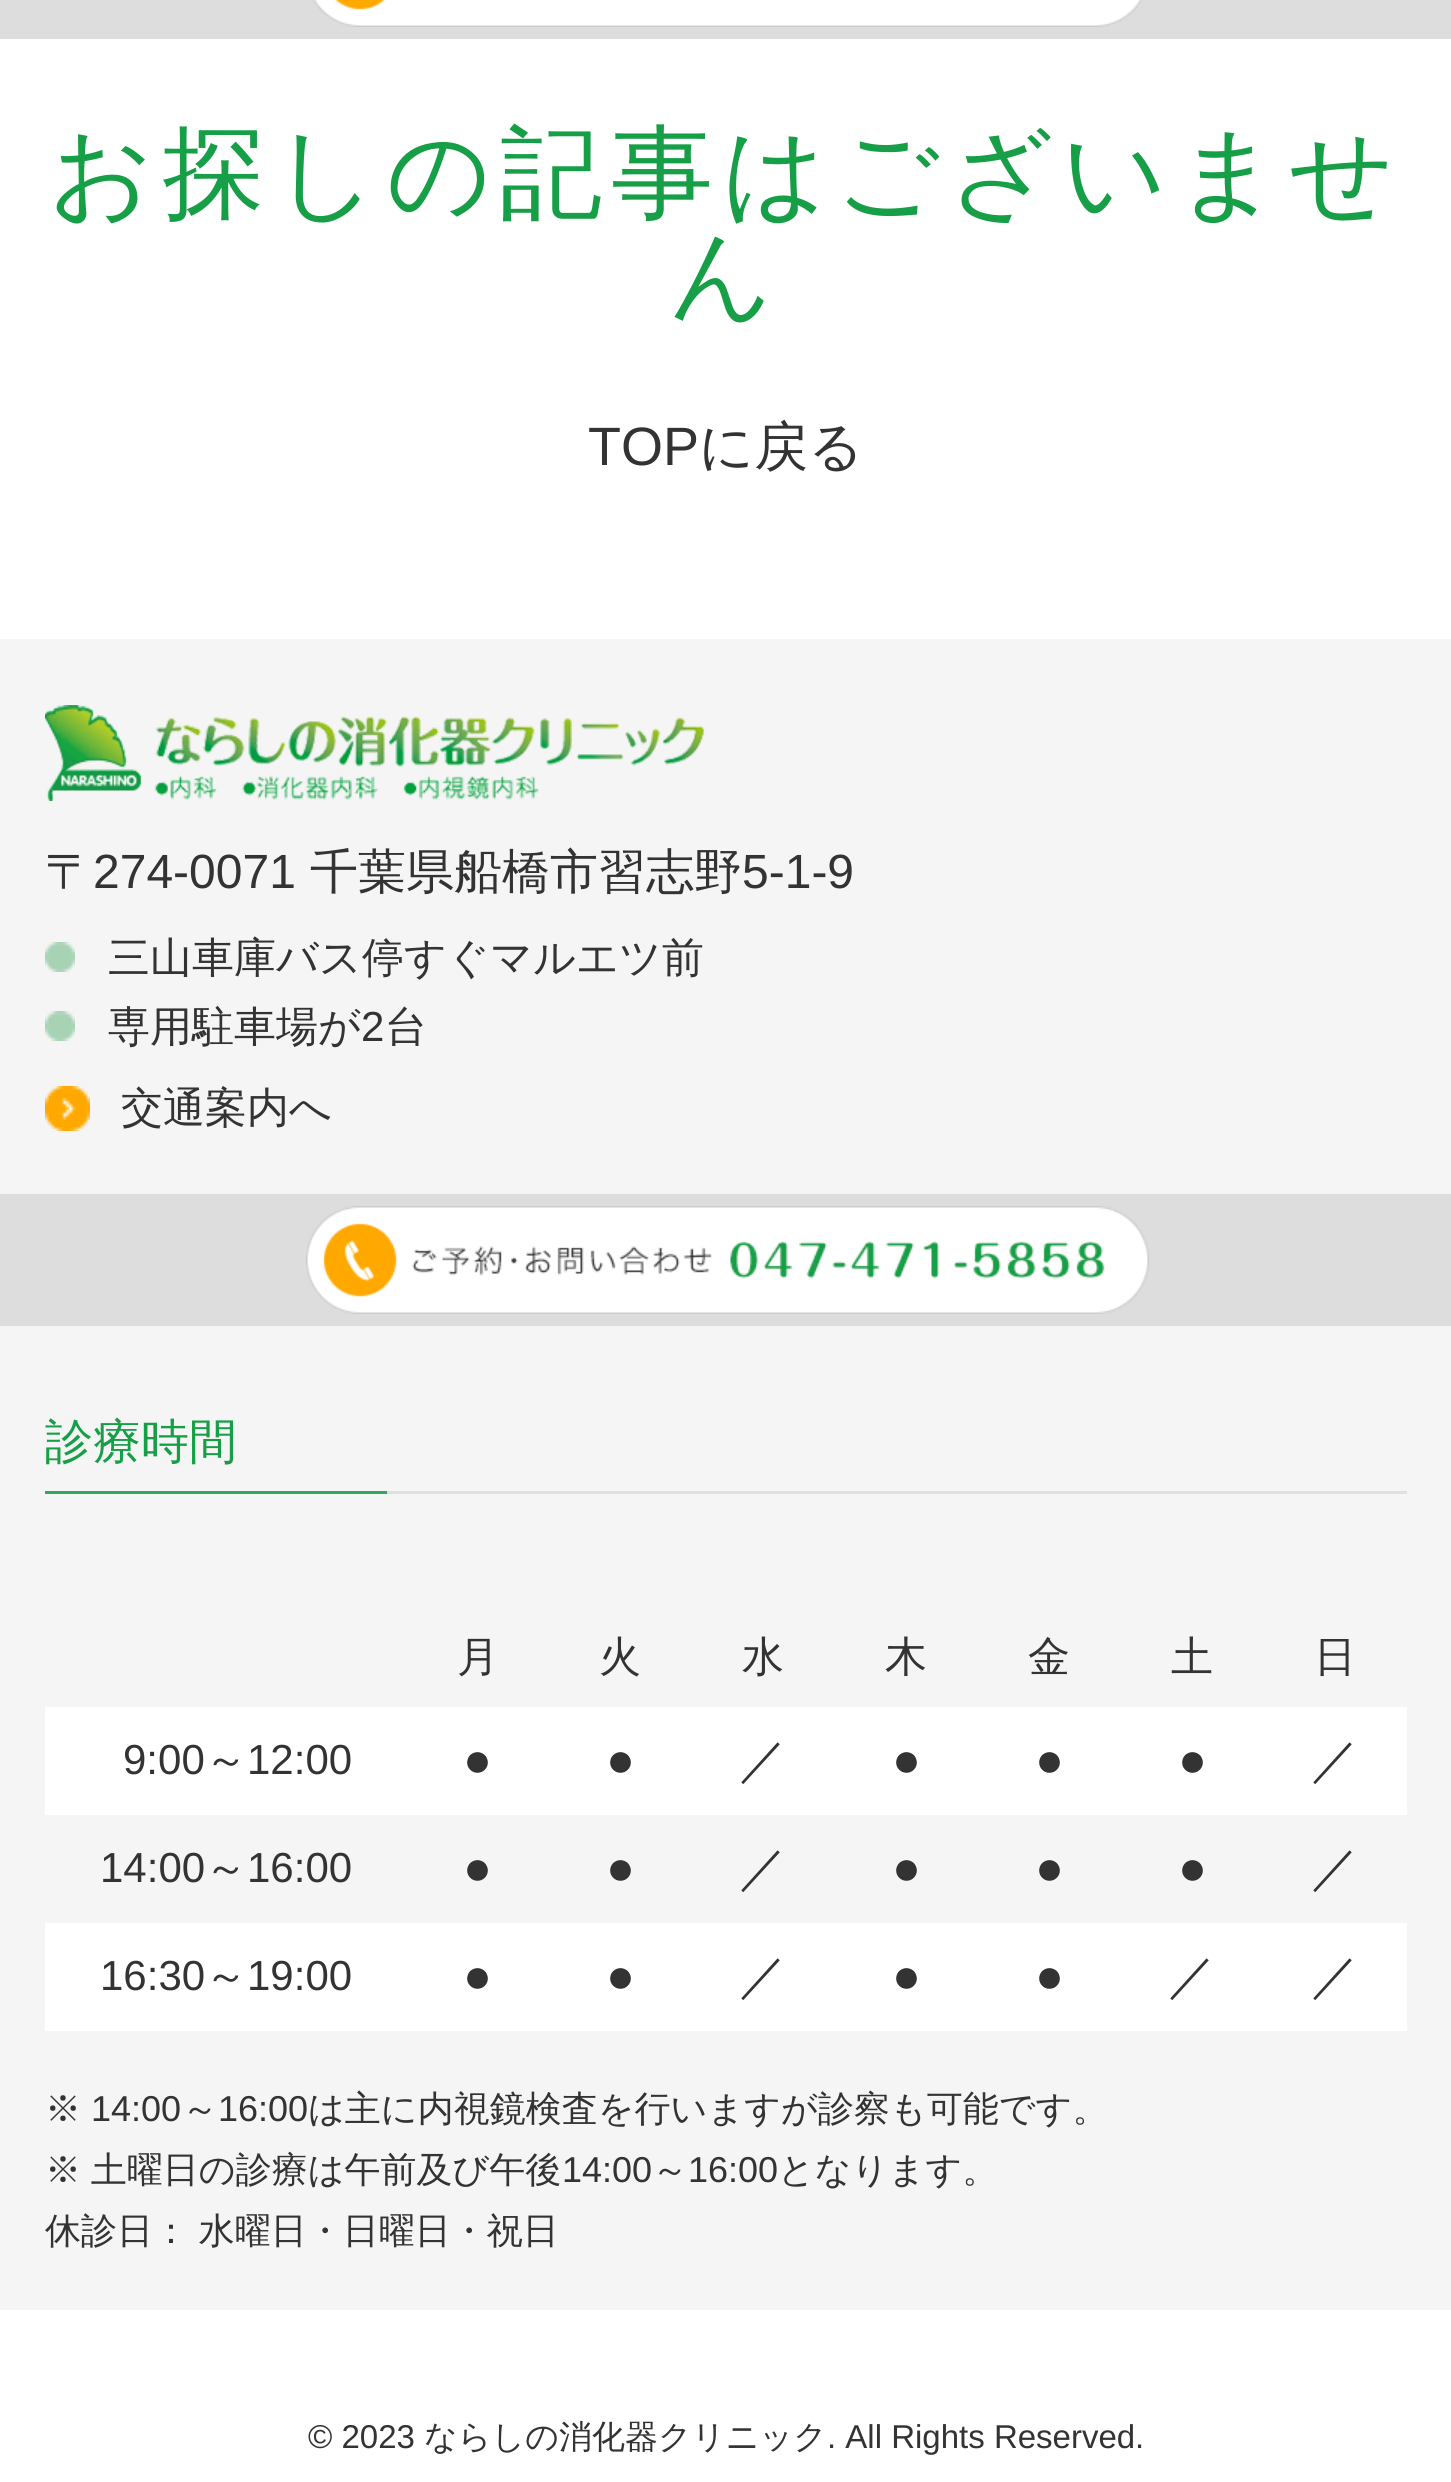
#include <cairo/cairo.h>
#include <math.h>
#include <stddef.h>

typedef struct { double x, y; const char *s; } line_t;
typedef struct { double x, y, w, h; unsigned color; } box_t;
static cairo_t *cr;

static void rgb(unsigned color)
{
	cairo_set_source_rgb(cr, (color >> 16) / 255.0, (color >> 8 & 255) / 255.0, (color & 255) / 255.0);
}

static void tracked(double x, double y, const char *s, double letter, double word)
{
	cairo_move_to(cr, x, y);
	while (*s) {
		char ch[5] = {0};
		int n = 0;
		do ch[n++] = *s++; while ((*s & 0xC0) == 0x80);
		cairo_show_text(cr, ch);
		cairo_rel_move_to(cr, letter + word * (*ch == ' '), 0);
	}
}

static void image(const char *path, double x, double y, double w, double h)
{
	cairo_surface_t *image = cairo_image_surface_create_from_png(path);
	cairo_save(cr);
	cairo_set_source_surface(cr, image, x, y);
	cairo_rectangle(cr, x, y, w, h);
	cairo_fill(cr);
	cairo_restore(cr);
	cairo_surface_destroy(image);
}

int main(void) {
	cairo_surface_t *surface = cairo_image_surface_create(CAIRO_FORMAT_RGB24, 1451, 2482);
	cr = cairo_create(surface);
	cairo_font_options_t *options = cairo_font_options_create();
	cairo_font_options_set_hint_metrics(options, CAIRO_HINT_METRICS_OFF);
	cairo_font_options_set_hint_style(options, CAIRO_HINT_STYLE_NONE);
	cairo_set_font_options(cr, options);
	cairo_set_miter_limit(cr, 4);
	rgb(0xffffff);
	cairo_paint(cr);
	rgb(0xdddddd);
	cairo_rectangle(cr, 0, 0, 1451, 39);
	cairo_fill(cr);
	image("img/1.png", 313, 0, 829, 27);
	rgb(0xf5f5f5);
	cairo_rectangle(cr, 0, 639, 1451, 1671);
	cairo_fill(cr);
	image("img/2.png", 45, 705, 660, 96);
	image("img/3.png", 45, 942, 30, 30);
	image("img/3.png", 45, 1011, 30, 30);
	image("img/4.png", 45, 1086, 45, 45);
	rgb(0xdddddd);
	cairo_rectangle(cr, 0, 1194, 1451, 132);
	cairo_fill(cr);
	image("img/5.png", 306, 1206, 843, 108);
	{
		static const box_t items[] = {
			{387, 1491, 1020, 3, 0xe0e0e0},
			{45, 1491, 342, 3, 0x31a85b},
			{45, 1707, 1362, 108, 0xffffff},
			{45, 1923, 1362, 108, 0xffffff},
		};
		for (size_t i = 0; i < sizeof items / sizeof *items; i++) {
			rgb(items[i].color);
			cairo_rectangle(cr, items[i].x, items[i].y, items[i].w, items[i].h);
			cairo_fill(cr);
		}
	}
	cairo_select_font_face(cr, "WenQuanYi Zen Hei Medium", CAIRO_FONT_SLANT_NORMAL, CAIRO_FONT_WEIGHT_NORMAL);
	cairo_set_font_size(cr, 102);
	rgb(0x169f46);
	tracked(49, 208, "お探しの記事はございませ", 9, 0);
	tracked(669, 310, "ん", 9, 0);
	cairo_select_font_face(cr, "Liberation Sans", CAIRO_FONT_SLANT_NORMAL, CAIRO_FONT_WEIGHT_NORMAL);
	cairo_set_font_size(cr, 54);
	rgb(0x333333);
	cairo_move_to(cr, 588, 465);
	cairo_show_text(cr, "TOP");
	cairo_select_font_face(cr, "WenQuanYi Zen Hei Medium", CAIRO_FONT_SLANT_NORMAL, CAIRO_FONT_WEIGHT_NORMAL);
	cairo_move_to(cr, 699, 465);
	cairo_show_text(cr, "に戻る");
	cairo_set_font_size(cr, 48);
	cairo_move_to(cr, 45, 888);
	cairo_show_text(cr, "〒");
	cairo_select_font_face(cr, "Liberation Sans", CAIRO_FONT_SLANT_NORMAL, CAIRO_FONT_WEIGHT_NORMAL);
	cairo_move_to(cr, 93, 888);
	cairo_show_text(cr, "274-0071");
	cairo_select_font_face(cr, "WenQuanYi Zen Hei Medium", CAIRO_FONT_SLANT_NORMAL, CAIRO_FONT_WEIGHT_NORMAL);
	cairo_move_to(cr, 310, 888);
	cairo_show_text(cr, "千葉県船橋市習志野");
	cairo_select_font_face(cr, "Liberation Sans", CAIRO_FONT_SLANT_NORMAL, CAIRO_FONT_WEIGHT_NORMAL);
	cairo_move_to(cr, 742, 888);
	cairo_show_text(cr, "5-1-9");
	cairo_select_font_face(cr, "WenQuanYi Zen Hei Medium", CAIRO_FONT_SLANT_NORMAL, CAIRO_FONT_WEIGHT_NORMAL);
	cairo_set_font_size(cr, 42);
	cairo_move_to(cr, 108, 972);
	cairo_show_text(cr, "三山車庫バス停すぐマルエツ前");
	cairo_move_to(cr, 108, 1041);
	cairo_show_text(cr, "専用駐車場が");
	cairo_select_font_face(cr, "Liberation Sans", CAIRO_FONT_SLANT_NORMAL, CAIRO_FONT_WEIGHT_NORMAL);
	cairo_move_to(cr, 361, 1041);
	cairo_show_text(cr, "2");
	cairo_select_font_face(cr, "WenQuanYi Zen Hei Medium", CAIRO_FONT_SLANT_NORMAL, CAIRO_FONT_WEIGHT_NORMAL);
	cairo_move_to(cr, 385, 1041);
	cairo_show_text(cr, "台");
	cairo_move_to(cr, 121, 1122);
	cairo_show_text(cr, "交通案内へ");
	cairo_set_font_size(cr, 48);
	rgb(0x169f46);
	cairo_move_to(cr, 45, 1458);
	cairo_show_text(cr, "診療時間");
	cairo_set_font_size(cr, 42);
	rgb(0x333333);
	{
		static const line_t items[] = {
			{457, 1671, "月"},
			{599, 1671, "火"},
			{742, 1671, "水"},
			{885, 1671, "木"},
			{1028, 1671, "金"},
			{1171, 1671, "土"},
			{1314, 1671, "日"},
		};
		for (size_t i = 0; i < sizeof items / sizeof *items; i++) {
			cairo_move_to(cr, items[i].x, items[i].y);
			cairo_show_text(cr, items[i].s);
		}
	}
	cairo_select_font_face(cr, "Liberation Sans", CAIRO_FONT_SLANT_NORMAL, CAIRO_FONT_WEIGHT_NORMAL);
	cairo_move_to(cr, 123, 1774);
	cairo_show_text(cr, "9:00");
	cairo_select_font_face(cr, "WenQuanYi Zen Hei Medium", CAIRO_FONT_SLANT_NORMAL, CAIRO_FONT_WEIGHT_NORMAL);
	cairo_move_to(cr, 205, 1774);
	cairo_show_text(cr, "～");
	cairo_select_font_face(cr, "Liberation Sans", CAIRO_FONT_SLANT_NORMAL, CAIRO_FONT_WEIGHT_NORMAL);
	cairo_move_to(cr, 247, 1774);
	cairo_show_text(cr, "12:00");
	cairo_set_font_size(cr, 48);
	cairo_move_to(cr, 463, 1776);
	cairo_show_text(cr, "●");
	cairo_move_to(cr, 606, 1776);
	cairo_show_text(cr, "●");
	cairo_select_font_face(cr, "WenQuanYi Zen Hei Medium", CAIRO_FONT_SLANT_NORMAL, CAIRO_FONT_WEIGHT_NORMAL);
	cairo_move_to(cr, 739, 1776);
	cairo_show_text(cr, "／");
	cairo_select_font_face(cr, "Liberation Sans", CAIRO_FONT_SLANT_NORMAL, CAIRO_FONT_WEIGHT_NORMAL);
	{
		static const line_t items[] = {
			{892, 1776, "●"},
			{1035, 1776, "●"},
			{1178, 1776, "●"},
		};
		for (size_t i = 0; i < sizeof items / sizeof *items; i++) {
			cairo_move_to(cr, items[i].x, items[i].y);
			cairo_show_text(cr, items[i].s);
		}
	}
	cairo_select_font_face(cr, "WenQuanYi Zen Hei Medium", CAIRO_FONT_SLANT_NORMAL, CAIRO_FONT_WEIGHT_NORMAL);
	cairo_move_to(cr, 1311, 1776);
	cairo_show_text(cr, "／");
	cairo_select_font_face(cr, "Liberation Sans", CAIRO_FONT_SLANT_NORMAL, CAIRO_FONT_WEIGHT_NORMAL);
	cairo_set_font_size(cr, 42);
	cairo_move_to(cr, 100, 1882);
	cairo_show_text(cr, "14:00");
	cairo_select_font_face(cr, "WenQuanYi Zen Hei Medium", CAIRO_FONT_SLANT_NORMAL, CAIRO_FONT_WEIGHT_NORMAL);
	cairo_move_to(cr, 205, 1882);
	cairo_show_text(cr, "～");
	cairo_select_font_face(cr, "Liberation Sans", CAIRO_FONT_SLANT_NORMAL, CAIRO_FONT_WEIGHT_NORMAL);
	cairo_move_to(cr, 247, 1882);
	cairo_show_text(cr, "16:00");
	cairo_set_font_size(cr, 48);
	cairo_move_to(cr, 463, 1884);
	cairo_show_text(cr, "●");
	cairo_move_to(cr, 606, 1884);
	cairo_show_text(cr, "●");
	cairo_select_font_face(cr, "WenQuanYi Zen Hei Medium", CAIRO_FONT_SLANT_NORMAL, CAIRO_FONT_WEIGHT_NORMAL);
	cairo_move_to(cr, 739, 1884);
	cairo_show_text(cr, "／");
	cairo_select_font_face(cr, "Liberation Sans", CAIRO_FONT_SLANT_NORMAL, CAIRO_FONT_WEIGHT_NORMAL);
	{
		static const line_t items[] = {
			{892, 1884, "●"},
			{1035, 1884, "●"},
			{1178, 1884, "●"},
		};
		for (size_t i = 0; i < sizeof items / sizeof *items; i++) {
			cairo_move_to(cr, items[i].x, items[i].y);
			cairo_show_text(cr, items[i].s);
		}
	}
	cairo_select_font_face(cr, "WenQuanYi Zen Hei Medium", CAIRO_FONT_SLANT_NORMAL, CAIRO_FONT_WEIGHT_NORMAL);
	cairo_move_to(cr, 1311, 1884);
	cairo_show_text(cr, "／");
	cairo_select_font_face(cr, "Liberation Sans", CAIRO_FONT_SLANT_NORMAL, CAIRO_FONT_WEIGHT_NORMAL);
	cairo_set_font_size(cr, 42);
	cairo_move_to(cr, 100, 1990);
	cairo_show_text(cr, "16:30");
	cairo_select_font_face(cr, "WenQuanYi Zen Hei Medium", CAIRO_FONT_SLANT_NORMAL, CAIRO_FONT_WEIGHT_NORMAL);
	cairo_move_to(cr, 205, 1990);
	cairo_show_text(cr, "～");
	cairo_select_font_face(cr, "Liberation Sans", CAIRO_FONT_SLANT_NORMAL, CAIRO_FONT_WEIGHT_NORMAL);
	cairo_move_to(cr, 247, 1990);
	cairo_show_text(cr, "19:00");
	cairo_set_font_size(cr, 48);
	cairo_move_to(cr, 463, 1992);
	cairo_show_text(cr, "●");
	cairo_move_to(cr, 606, 1992);
	cairo_show_text(cr, "●");
	cairo_select_font_face(cr, "WenQuanYi Zen Hei Medium", CAIRO_FONT_SLANT_NORMAL, CAIRO_FONT_WEIGHT_NORMAL);
	cairo_move_to(cr, 739, 1992);
	cairo_show_text(cr, "／");
	cairo_select_font_face(cr, "Liberation Sans", CAIRO_FONT_SLANT_NORMAL, CAIRO_FONT_WEIGHT_NORMAL);
	cairo_move_to(cr, 892, 1992);
	cairo_show_text(cr, "●");
	cairo_move_to(cr, 1035, 1992);
	cairo_show_text(cr, "●");
	cairo_select_font_face(cr, "WenQuanYi Zen Hei Medium", CAIRO_FONT_SLANT_NORMAL, CAIRO_FONT_WEIGHT_NORMAL);
	cairo_move_to(cr, 1168, 1992);
	cairo_show_text(cr, "／");
	cairo_move_to(cr, 1311, 1992);
	cairo_show_text(cr, "／");
	cairo_set_font_size(cr, 36);
	cairo_move_to(cr, 45, 2121);
	cairo_show_text(cr, "※");
	cairo_select_font_face(cr, "Liberation Sans", CAIRO_FONT_SLANT_NORMAL, CAIRO_FONT_WEIGHT_NORMAL);
	cairo_move_to(cr, 91, 2121);
	cairo_show_text(cr, "14:00");
	cairo_select_font_face(cr, "WenQuanYi Zen Hei Medium", CAIRO_FONT_SLANT_NORMAL, CAIRO_FONT_WEIGHT_NORMAL);
	cairo_move_to(cr, 182, 2121);
	cairo_show_text(cr, "～");
	cairo_select_font_face(cr, "Liberation Sans", CAIRO_FONT_SLANT_NORMAL, CAIRO_FONT_WEIGHT_NORMAL);
	cairo_move_to(cr, 218, 2121);
	cairo_show_text(cr, "16:00");
	cairo_select_font_face(cr, "WenQuanYi Zen Hei Medium", CAIRO_FONT_SLANT_NORMAL, CAIRO_FONT_WEIGHT_NORMAL);
	cairo_move_to(cr, 308, 2121);
	cairo_show_text(cr, "は主に内視鏡検査を行いますが診察も可能です。");
	tracked(45, 2182, "※ 土曜日の診療は午前及び午後", 0, -1);
	cairo_select_font_face(cr, "Liberation Sans", CAIRO_FONT_SLANT_NORMAL, CAIRO_FONT_WEIGHT_NORMAL);
	cairo_move_to(cr, 562, 2182);
	cairo_show_text(cr, "14:00");
	cairo_select_font_face(cr, "WenQuanYi Zen Hei Medium", CAIRO_FONT_SLANT_NORMAL, CAIRO_FONT_WEIGHT_NORMAL);
	cairo_move_to(cr, 652, 2182);
	cairo_show_text(cr, "～");
	cairo_select_font_face(cr, "Liberation Sans", CAIRO_FONT_SLANT_NORMAL, CAIRO_FONT_WEIGHT_NORMAL);
	cairo_move_to(cr, 688, 2182);
	cairo_show_text(cr, "16:00");
	cairo_select_font_face(cr, "WenQuanYi Zen Hei Medium", CAIRO_FONT_SLANT_NORMAL, CAIRO_FONT_WEIGHT_NORMAL);
	cairo_move_to(cr, 778, 2182);
	cairo_show_text(cr, "となります。");
	tracked(45, 2243, "休診日： 水曜日・日曜日・祝日", 0, -1);
	cairo_select_font_face(cr, "Liberation Sans", CAIRO_FONT_SLANT_NORMAL, CAIRO_FONT_WEIGHT_NORMAL);
	cairo_set_font_size(cr, 33);
	cairo_move_to(cr, 308, 2448);
	cairo_show_text(cr, "© 2023");
	cairo_select_font_face(cr, "WenQuanYi Zen Hei Medium", CAIRO_FONT_SLANT_NORMAL, CAIRO_FONT_WEIGHT_NORMAL);
	cairo_move_to(cr, 424, 2448);
	cairo_show_text(cr, "ならしの消化器クリニック");
	cairo_select_font_face(cr, "Liberation Sans", CAIRO_FONT_SLANT_NORMAL, CAIRO_FONT_WEIGHT_NORMAL);
	cairo_move_to(cr, 827, 2448);
	cairo_show_text(cr, ". All Rights Reserved.");
	cairo_surface_write_to_png(surface, "page.png");
	cairo_font_options_destroy(options);
	cairo_destroy(cr);
	cairo_surface_destroy(surface);
	return 0;
}
